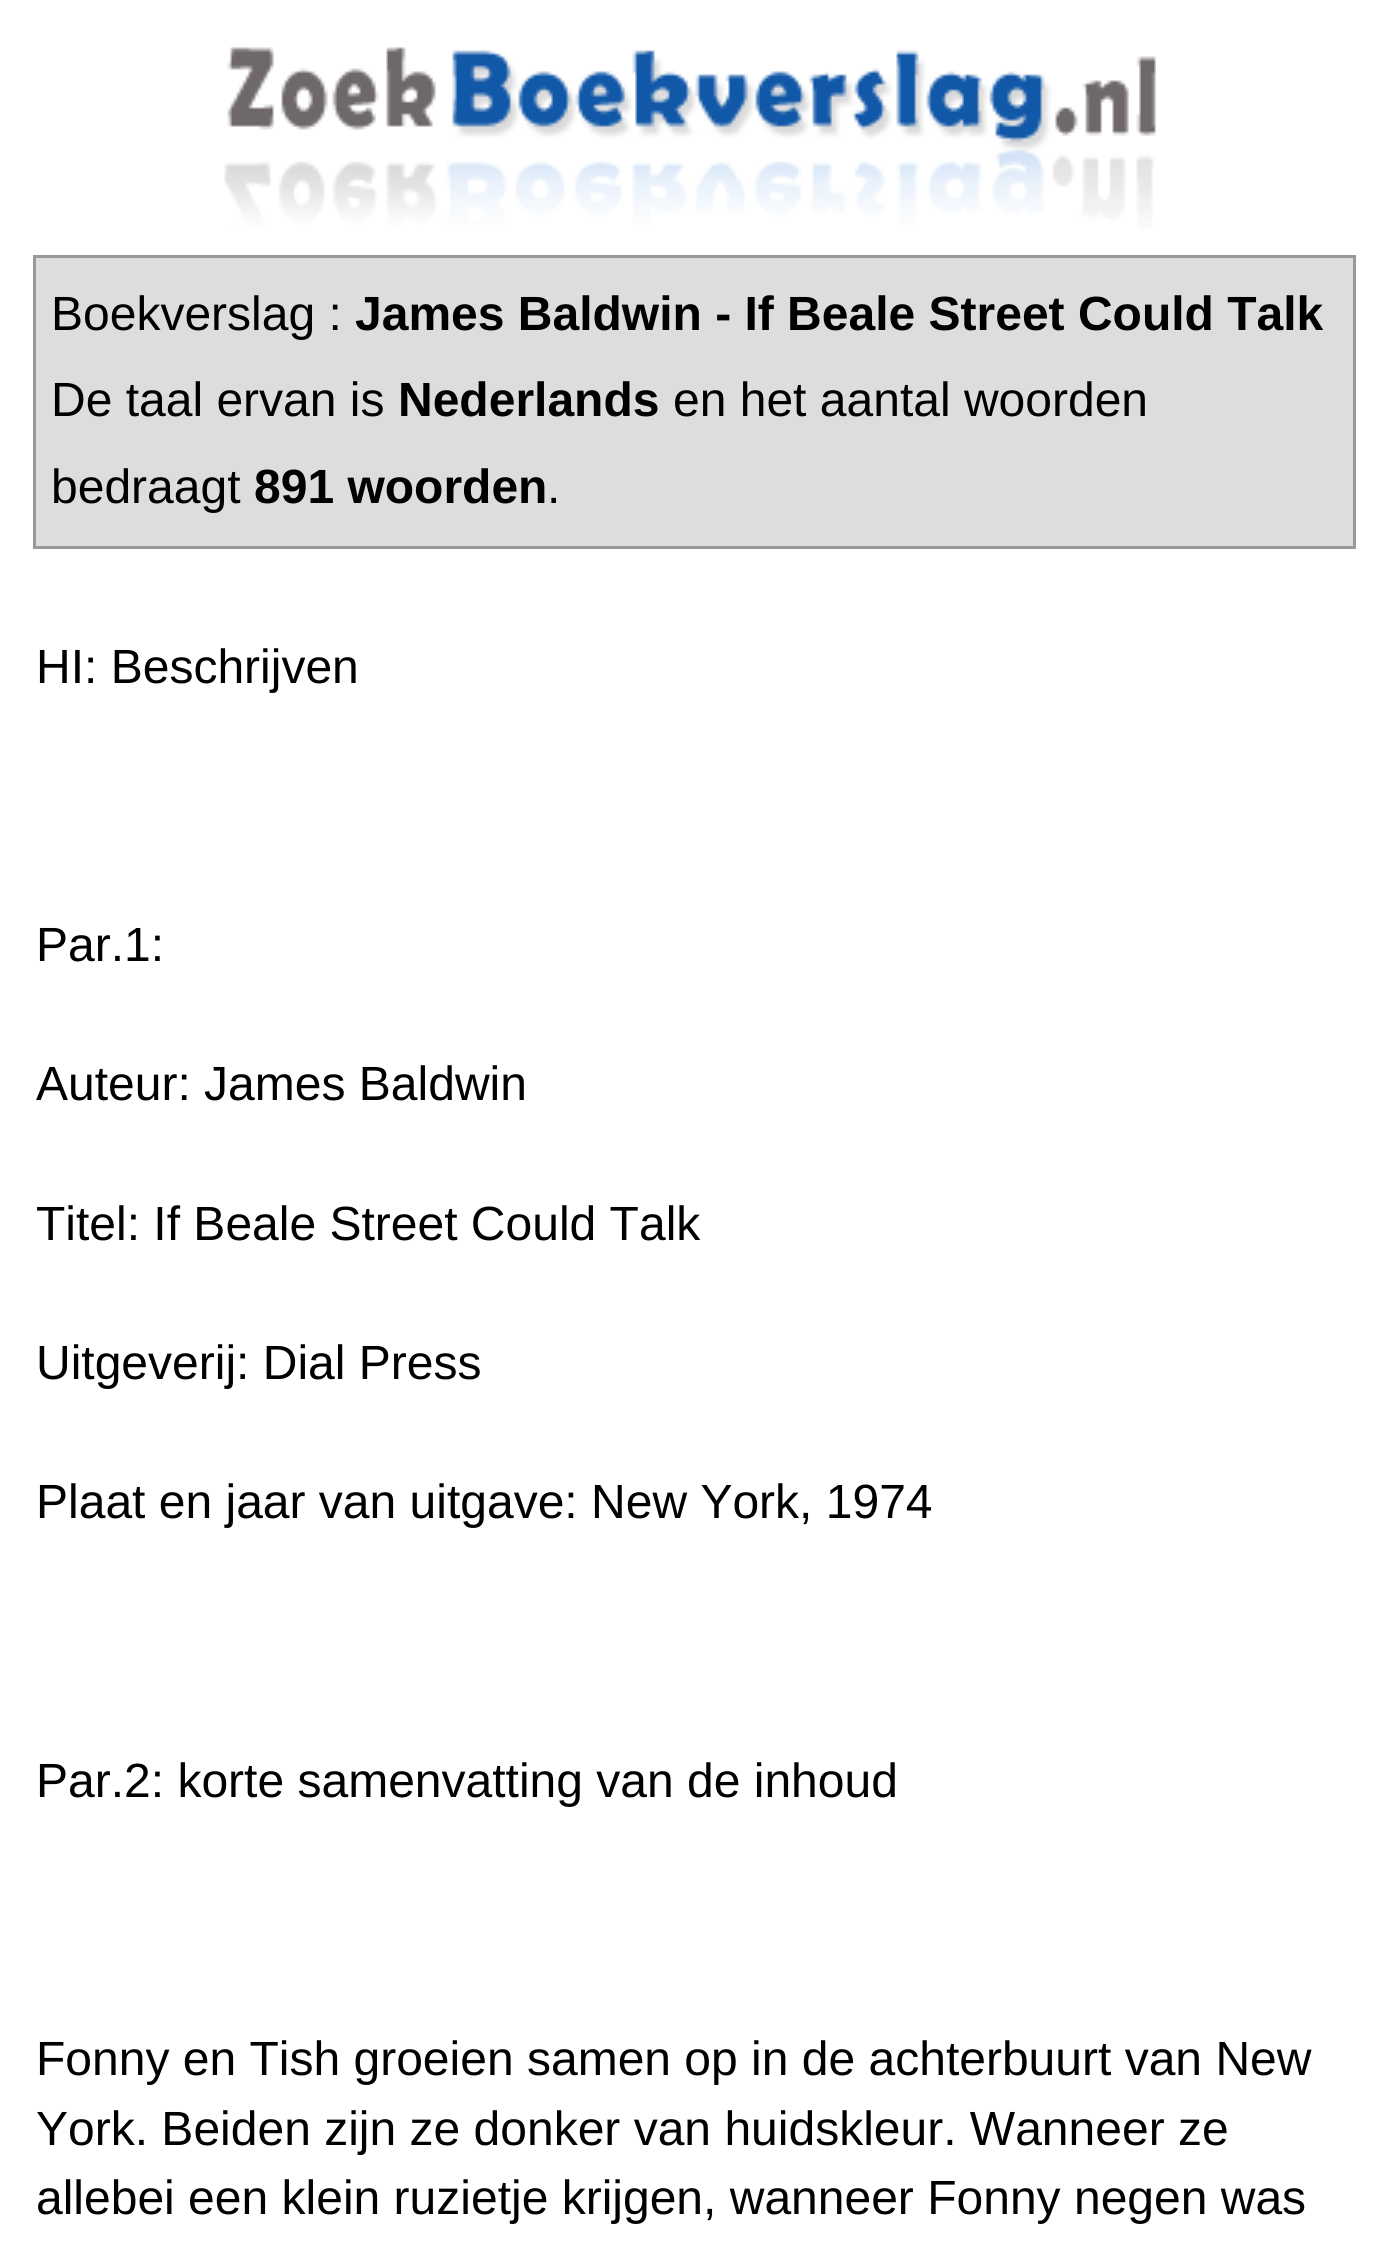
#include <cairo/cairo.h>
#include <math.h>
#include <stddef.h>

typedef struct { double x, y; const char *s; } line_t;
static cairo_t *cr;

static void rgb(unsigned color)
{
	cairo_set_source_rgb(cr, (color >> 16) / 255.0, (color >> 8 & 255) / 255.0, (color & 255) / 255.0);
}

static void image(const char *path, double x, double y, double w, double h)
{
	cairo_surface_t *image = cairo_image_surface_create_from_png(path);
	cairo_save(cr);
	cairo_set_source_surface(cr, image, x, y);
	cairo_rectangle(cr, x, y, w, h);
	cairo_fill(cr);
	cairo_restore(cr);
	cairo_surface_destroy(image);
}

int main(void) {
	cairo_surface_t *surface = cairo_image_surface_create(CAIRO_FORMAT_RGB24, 1389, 2255);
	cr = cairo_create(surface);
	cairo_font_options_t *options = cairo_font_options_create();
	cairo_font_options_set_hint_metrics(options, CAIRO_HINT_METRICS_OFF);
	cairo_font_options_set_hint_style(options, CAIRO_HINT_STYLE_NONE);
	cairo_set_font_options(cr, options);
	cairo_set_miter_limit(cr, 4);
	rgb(0xffffff);
	cairo_paint(cr);
	image("img/1.png", 224, 47, 932, 182);
	rgb(0xdddddd);
	cairo_rectangle(cr, 34.5, 256.5, 1320, 291);
	cairo_fill_preserve(cr);
	rgb(0x999999);
	cairo_set_line_width(cr, 3);
	cairo_stroke(cr);
	cairo_select_font_face(cr, "Liberation Sans", CAIRO_FONT_SLANT_NORMAL, CAIRO_FONT_WEIGHT_NORMAL);
	cairo_set_font_size(cr, 48);
	rgb(0x000000);
	cairo_move_to(cr, 51, 330);
	cairo_show_text(cr, "Boekverslag :");
	cairo_select_font_face(cr, "Liberation Sans", CAIRO_FONT_SLANT_NORMAL, CAIRO_FONT_WEIGHT_BOLD);
	cairo_move_to(cr, 355, 330);
	cairo_show_text(cr, "James Baldwin - If Beale Street Could Talk");
	cairo_select_font_face(cr, "Liberation Sans", CAIRO_FONT_SLANT_NORMAL, CAIRO_FONT_WEIGHT_NORMAL);
	cairo_move_to(cr, 51, 416);
	cairo_show_text(cr, "De taal ervan is");
	cairo_select_font_face(cr, "Liberation Sans", CAIRO_FONT_SLANT_NORMAL, CAIRO_FONT_WEIGHT_BOLD);
	cairo_move_to(cr, 398, 416);
	cairo_show_text(cr, "Nederlands");
	cairo_select_font_face(cr, "Liberation Sans", CAIRO_FONT_SLANT_NORMAL, CAIRO_FONT_WEIGHT_NORMAL);
	cairo_move_to(cr, 673, 416);
	cairo_show_text(cr, "en het aantal woorden");
	cairo_move_to(cr, 51, 503);
	cairo_show_text(cr, "bedraagt");
	cairo_select_font_face(cr, "Liberation Sans", CAIRO_FONT_SLANT_NORMAL, CAIRO_FONT_WEIGHT_BOLD);
	cairo_move_to(cr, 254, 503);
	cairo_show_text(cr, "891 woorden");
	cairo_select_font_face(cr, "Liberation Sans", CAIRO_FONT_SLANT_NORMAL, CAIRO_FONT_WEIGHT_NORMAL);
	{
		static const line_t items[] = {
			{547, 503, "."},
			{36, 683, "HI: Beschrijven"},
			{36, 961, "Par.1:"},
			{36, 1100, "Auteur: James Baldwin"},
			{36, 1240, "Titel: If Beale Street Could Talk"},
			{36, 1379, "Uitgeverij: Dial Press"},
			{36, 1518, "Plaat en jaar van uitgave: New York, 1974"},
			{36, 1797, "Par.2: korte samenvatting van de inhoud"},
			{36, 2075, "Fonny en Tish groeien samen op in de achterbuurt van New"},
			{36, 2145, "York. Beiden zijn ze donker van huidskleur. Wanneer ze"},
			{36, 2214, "allebei een klein ruzietje krijgen, wanneer Fonny negen was"},
		};
		for (size_t i = 0; i < sizeof items / sizeof *items; i++) {
			cairo_move_to(cr, items[i].x, items[i].y);
			cairo_show_text(cr, items[i].s);
		}
	}
	cairo_surface_write_to_png(surface, "page.png");
	cairo_font_options_destroy(options);
	cairo_destroy(cr);
	cairo_surface_destroy(surface);
	return 0;
}
